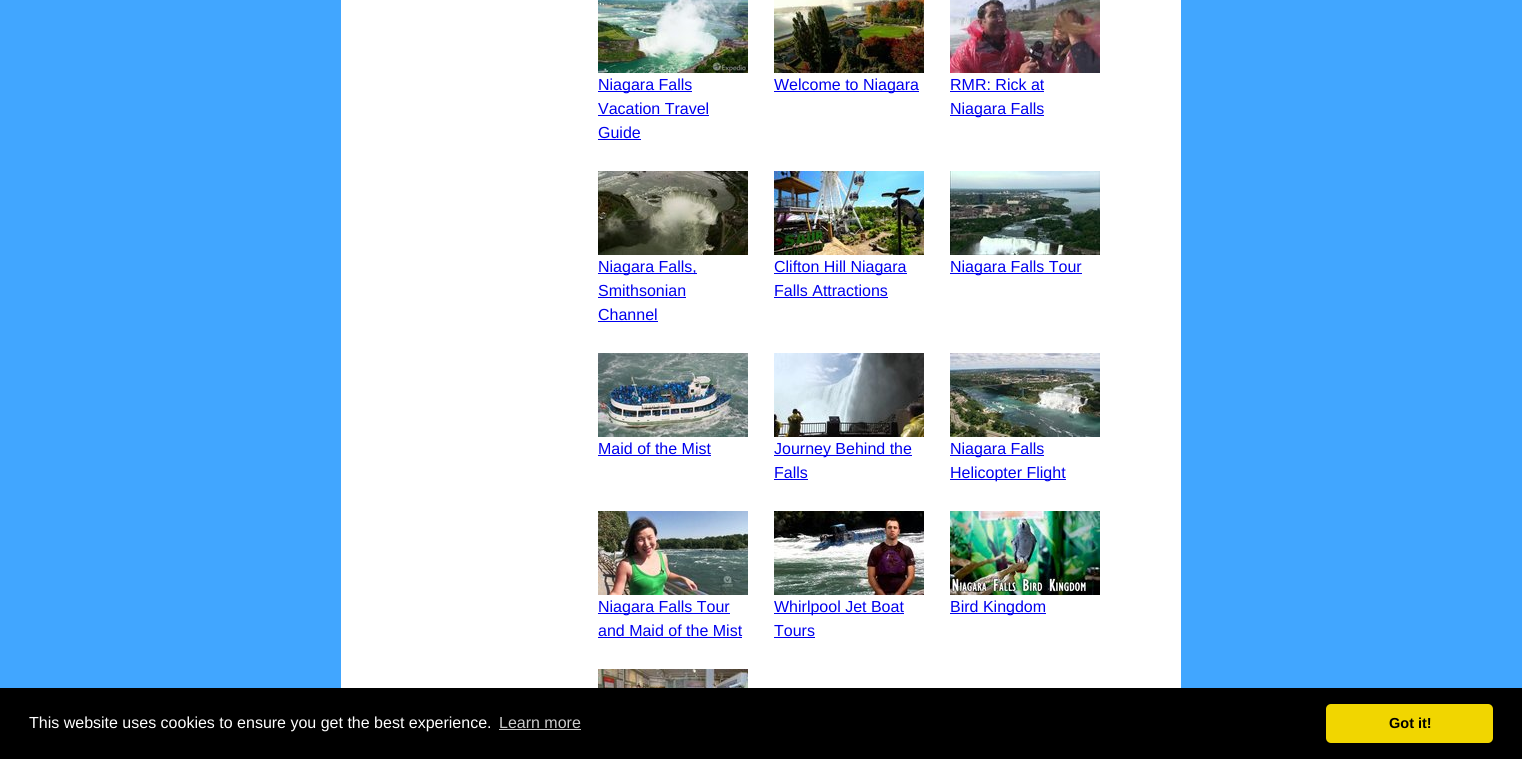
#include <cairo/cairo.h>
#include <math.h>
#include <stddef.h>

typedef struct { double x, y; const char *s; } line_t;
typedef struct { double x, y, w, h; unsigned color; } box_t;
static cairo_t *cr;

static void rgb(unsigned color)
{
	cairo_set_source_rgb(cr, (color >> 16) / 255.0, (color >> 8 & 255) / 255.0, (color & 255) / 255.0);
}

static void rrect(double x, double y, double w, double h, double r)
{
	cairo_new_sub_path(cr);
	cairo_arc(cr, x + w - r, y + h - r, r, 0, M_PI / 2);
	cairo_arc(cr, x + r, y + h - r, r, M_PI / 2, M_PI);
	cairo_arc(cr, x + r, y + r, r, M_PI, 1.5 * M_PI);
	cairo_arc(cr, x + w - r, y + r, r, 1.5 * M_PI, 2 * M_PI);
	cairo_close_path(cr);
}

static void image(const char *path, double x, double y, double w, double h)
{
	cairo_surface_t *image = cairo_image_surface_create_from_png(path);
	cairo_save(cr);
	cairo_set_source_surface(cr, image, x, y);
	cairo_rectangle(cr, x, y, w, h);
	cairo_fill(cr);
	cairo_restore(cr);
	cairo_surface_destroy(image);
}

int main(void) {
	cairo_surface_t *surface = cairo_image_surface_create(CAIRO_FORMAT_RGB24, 1522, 759);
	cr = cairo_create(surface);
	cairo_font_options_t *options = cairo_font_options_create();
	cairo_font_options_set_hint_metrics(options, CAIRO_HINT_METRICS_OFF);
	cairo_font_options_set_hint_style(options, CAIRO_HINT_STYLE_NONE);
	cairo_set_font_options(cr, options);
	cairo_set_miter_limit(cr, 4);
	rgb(0x41a6ff);
	cairo_paint(cr);
	rgb(0xffffff);
	cairo_rectangle(cr, 341, 0, 840, 688);
	cairo_fill(cr);
	image("img/1.png", 598, 0, 150, 73);
	{
		static const box_t items[] = {
			{598, 91, 94, 1, 0x0000ee},
			{598, 115, 111, 1, 0x0000ee},
			{598, 139, 43, 1, 0x0000ee},
		};
		for (size_t i = 0; i < sizeof items / sizeof *items; i++) {
			rgb(items[i].color);
			cairo_rectangle(cr, items[i].x, items[i].y, items[i].w, items[i].h);
			cairo_fill(cr);
		}
	}
	image("img/2.png", 774, 0, 150, 73);
	cairo_rectangle(cr, 774, 91, 145, 1);
	cairo_fill(cr);
	image("img/3.png", 950, 0, 150, 73);
	cairo_rectangle(cr, 950, 91, 94, 1);
	cairo_fill(cr);
	cairo_rectangle(cr, 950, 115, 94, 1);
	cairo_fill(cr);
	image("img/4.png", 598, 171, 150, 84);
	{
		static const box_t items[] = {
			{598, 273, 99, 1, 0x0000ee},
			{598, 297, 88, 1, 0x0000ee},
			{598, 321, 60, 1, 0x0000ee},
		};
		for (size_t i = 0; i < sizeof items / sizeof *items; i++) {
			rgb(items[i].color);
			cairo_rectangle(cr, items[i].x, items[i].y, items[i].w, items[i].h);
			cairo_fill(cr);
		}
	}
	image("img/5.png", 774, 171, 150, 84);
	cairo_rectangle(cr, 774, 273, 133, 1);
	cairo_fill(cr);
	cairo_rectangle(cr, 774, 297, 114, 1);
	cairo_fill(cr);
	image("img/6.png", 950, 171, 150, 84);
	cairo_rectangle(cr, 950, 273, 132, 1);
	cairo_fill(cr);
	image("img/7.png", 598, 353, 150, 84);
	cairo_rectangle(cr, 598, 455, 113, 1);
	cairo_fill(cr);
	image("img/8.png", 774, 353, 150, 84);
	cairo_rectangle(cr, 774, 455, 138, 1);
	cairo_fill(cr);
	cairo_rectangle(cr, 774, 479, 34, 1);
	cairo_fill(cr);
	image("img/9.png", 950, 353, 150, 84);
	cairo_rectangle(cr, 950, 455, 94, 1);
	cairo_fill(cr);
	cairo_rectangle(cr, 950, 479, 116, 1);
	cairo_fill(cr);
	image("img/10.png", 598, 511, 150, 84);
	cairo_rectangle(cr, 598, 613, 132, 1);
	cairo_fill(cr);
	cairo_rectangle(cr, 598, 637, 144, 1);
	cairo_fill(cr);
	image("img/11.png", 774, 511, 150, 84);
	cairo_rectangle(cr, 774, 613, 130, 1);
	cairo_fill(cr);
	cairo_rectangle(cr, 774, 637, 41, 1);
	cairo_fill(cr);
	image("img/12.png", 950, 511, 150, 84);
	cairo_rectangle(cr, 950, 613, 96, 1);
	cairo_fill(cr);
	image("img/13.png", 598, 669, 150, 19);
	rgb(0x000000);
	cairo_rectangle(cr, 0, 688, 1522, 71);
	cairo_fill(cr);
	rgb(0xcccccc);
	cairo_rectangle(cr, 499, 729, 82, 1);
	cairo_fill(cr);
	rgb(0xf1d600);
	rrect(1326, 704, 167, 39, 5);
	cairo_fill(cr);
	cairo_select_font_face(cr, "Liberation Sans", CAIRO_FONT_SLANT_NORMAL, CAIRO_FONT_WEIGHT_NORMAL);
	cairo_set_font_size(cr, 16);
	rgb(0x0000ee);
	{
		static const line_t items[] = {
			{598, 90, "Niagara Falls"},
			{598, 114, "Vacation Travel"},
			{598, 138, "Guide"},
			{774, 90, "Welcome to Niagara"},
			{950, 90, "RMR: Rick at"},
			{950, 114, "Niagara Falls"},
			{598, 272, "Niagara Falls,"},
			{598, 296, "Smithsonian"},
			{598, 320, "Channel"},
			{774, 272, "Clifton Hill Niagara"},
			{774, 296, "Falls Attractions"},
			{950, 272, "Niagara Falls Tour"},
			{598, 454, "Maid of the Mist"},
			{774, 454, "Journey Behind the"},
			{774, 478, "Falls"},
			{950, 454, "Niagara Falls"},
			{950, 478, "Helicopter Flight"},
			{598, 612, "Niagara Falls Tour"},
			{598, 636, "and Maid of the Mist"},
			{774, 612, "Whirlpool Jet Boat"},
			{774, 636, "Tours"},
			{950, 612, "Bird Kingdom"},
		};
		for (size_t i = 0; i < sizeof items / sizeof *items; i++) {
			cairo_move_to(cr, items[i].x, items[i].y);
			cairo_show_text(cr, items[i].s);
		}
	}
	rgb(0xffffff);
	cairo_move_to(cr, 29, 728);
	cairo_show_text(cr, "This website uses cookies to ensure you get the best experience.");
	rgb(0xcccccc);
	cairo_move_to(cr, 499, 728);
	cairo_show_text(cr, "Learn more");
	cairo_select_font_face(cr, "Liberation Sans", CAIRO_FONT_SLANT_NORMAL, CAIRO_FONT_WEIGHT_BOLD);
	cairo_set_font_size(cr, 14.5);
	rgb(0x000000);
	cairo_move_to(cr, 1389, 728);
	cairo_show_text(cr, "Got it!");
	cairo_surface_write_to_png(surface, "page.png");
	cairo_font_options_destroy(options);
	cairo_destroy(cr);
	cairo_surface_destroy(surface);
	return 0;
}
